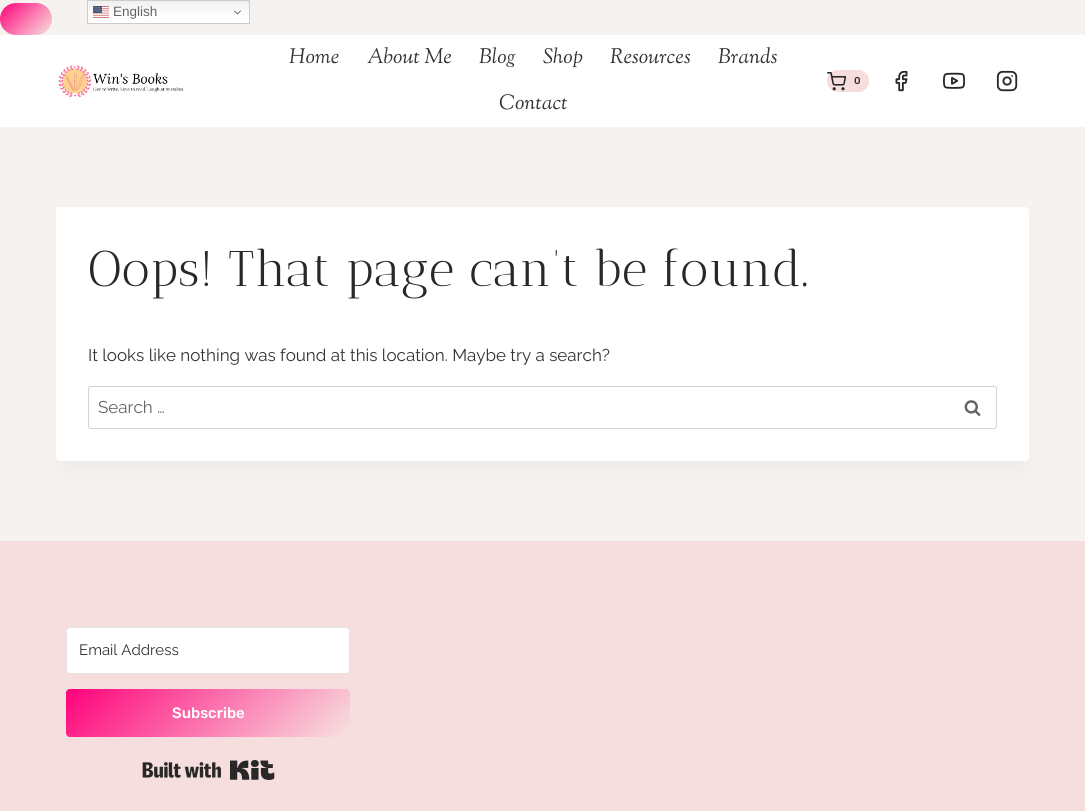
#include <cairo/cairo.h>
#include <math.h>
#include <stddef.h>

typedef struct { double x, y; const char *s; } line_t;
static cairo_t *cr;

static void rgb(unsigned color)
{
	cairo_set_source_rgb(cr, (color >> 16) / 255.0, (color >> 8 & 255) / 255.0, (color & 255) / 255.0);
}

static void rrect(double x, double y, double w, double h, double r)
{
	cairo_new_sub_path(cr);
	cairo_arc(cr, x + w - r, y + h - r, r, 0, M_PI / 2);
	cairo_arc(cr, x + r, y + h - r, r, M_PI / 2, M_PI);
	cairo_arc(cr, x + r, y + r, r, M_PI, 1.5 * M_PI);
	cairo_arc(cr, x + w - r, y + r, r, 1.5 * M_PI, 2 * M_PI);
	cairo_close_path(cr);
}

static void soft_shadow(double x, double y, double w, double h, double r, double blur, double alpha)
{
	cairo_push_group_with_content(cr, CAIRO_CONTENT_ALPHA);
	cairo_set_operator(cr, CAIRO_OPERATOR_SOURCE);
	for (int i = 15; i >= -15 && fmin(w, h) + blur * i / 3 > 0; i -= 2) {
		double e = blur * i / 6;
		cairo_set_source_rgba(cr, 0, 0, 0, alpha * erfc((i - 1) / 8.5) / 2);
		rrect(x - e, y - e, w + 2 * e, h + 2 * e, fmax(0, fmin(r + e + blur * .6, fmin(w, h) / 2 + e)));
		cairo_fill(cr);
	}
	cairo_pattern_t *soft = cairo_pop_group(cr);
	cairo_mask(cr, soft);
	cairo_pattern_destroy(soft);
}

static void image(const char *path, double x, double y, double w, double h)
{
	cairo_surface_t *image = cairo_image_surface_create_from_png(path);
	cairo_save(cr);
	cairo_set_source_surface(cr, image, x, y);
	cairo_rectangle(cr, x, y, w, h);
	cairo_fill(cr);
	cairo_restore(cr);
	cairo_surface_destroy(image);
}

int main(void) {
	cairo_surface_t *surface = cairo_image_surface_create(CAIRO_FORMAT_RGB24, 1085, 811);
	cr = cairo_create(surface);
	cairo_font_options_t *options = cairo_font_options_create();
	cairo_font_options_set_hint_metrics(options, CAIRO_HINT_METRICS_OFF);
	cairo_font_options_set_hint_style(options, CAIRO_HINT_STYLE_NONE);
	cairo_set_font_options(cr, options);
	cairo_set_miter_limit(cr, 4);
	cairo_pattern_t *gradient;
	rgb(0xf6f2ef);
	cairo_paint(cr);
	gradient = cairo_pattern_create_linear(5, -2, 47, 40);
	cairo_pattern_add_color_stop_rgba(gradient, 0.02, 1, 0.02, 0.486, 1);
	cairo_pattern_add_color_stop_rgba(gradient, 0.98, 0.969, 0.871, 0.871, 1);
	cairo_set_source(cr, gradient);
	cairo_pattern_destroy(gradient);
	rrect(0, 3, 52, 32, 16);
	cairo_fill(cr);
	gradient = cairo_pattern_create_linear(169, 0, 169, 24);
	cairo_pattern_add_color_stop_rgba(gradient, 0, 0.937, 0.937, 0.937, 1);
	cairo_pattern_add_color_stop_rgba(gradient, 0.7, 1, 1, 1, 1);
	cairo_set_source(cr, gradient);
	cairo_pattern_destroy(gradient);
	cairo_rectangle(cr, 88, 1, 161, 22);
	cairo_fill(cr);
	cairo_rectangle(cr, 87.5, 0.5, 162, 23);
	rgb(0xcccccc);
	cairo_set_line_width(cr, 1);
	cairo_stroke(cr);
	image("img/1.png", 93, 6, 16, 12);
	image("img/2.png", 234, 10, 7, 5);
	rgb(0xffffff);
	cairo_rectangle(cr, 0, 35, 1085, 92);
	cairo_fill(cr);
	image("img/3.png", 58, 65, 126, 32);
	rgb(0xf7dede);
	rrect(827, 70, 42, 22, 11);
	cairo_fill(cr);
	image("img/4.png", 827, 72, 19, 19);
	cairo_arc(cr, 858, 81, 11, 0, 2 * M_PI);
	cairo_fill(cr);
	image("img/5.png", 895, 70, 13, 22);
	image("img/6.png", 943, 72, 22, 17);
	image("img/7.png", 996, 70, 22, 22);
	rgb(0x000000);
	soft_shadow(66, 232, 953, 234, 0, 12.5, 0.05);
	rgb(0xffffff);
	rrect(56, 207, 973, 254, 4);
	cairo_fill(cr);
	rrect(88.5, 386.5, 908, 42, 2.5);
	rgb(0xcbd5e0);
	cairo_stroke(cr);
	image("img/8.png", 964, 400, 17, 16);
	rgb(0xf7dede);
	cairo_rectangle(cr, 0, 541, 1085, 270);
	cairo_fill(cr);
	rgb(0xffffff);
	rrect(66.5, 627.5, 283, 46, 3.5);
	cairo_fill_preserve(cr);
	rgb(0xe3e3e3);
	cairo_stroke(cr);
	gradient = cairo_pattern_create_linear(125, 630, 291, 796);
	cairo_pattern_add_color_stop_rgba(gradient, 0.02, 1, 0.02, 0.486, 1);
	cairo_pattern_add_color_stop_rgba(gradient, 0.98, 0.969, 0.871, 0.871, 1);
	cairo_set_source(cr, gradient);
	cairo_pattern_destroy(gradient);
	rrect(66, 689, 284, 48, 4);
	cairo_fill(cr);
	image("img/9.png", 142, 760, 133, 20);
	cairo_select_font_face(cr, "Liberation Sans", CAIRO_FONT_SLANT_NORMAL, CAIRO_FONT_WEIGHT_NORMAL);
	cairo_set_font_size(cr, 13.5);
	rgb(0x646464);
	cairo_move_to(cr, 113, 16);
	cairo_show_text(cr, "English");
	cairo_select_font_face(cr, "Sorts Mill Goudy", CAIRO_FONT_SLANT_ITALIC, CAIRO_FONT_WEIGHT_NORMAL);
	cairo_set_font_size(cr, 21);
	rgb(0x333333);
	{
		static const line_t items[] = {
			{289, 63, "Home"},
			{367, 63, "About Me"},
			{479, 63, "Blog"},
			{543, 63, "Shop"},
			{610, 63, "Resources"},
			{718, 63, "Brands"},
			{499, 109, "Contact"},
		};
		for (size_t i = 0; i < sizeof items / sizeof *items; i++) {
			cairo_move_to(cr, items[i].x, items[i].y);
			cairo_show_text(cr, items[i].s);
		}
	}
	cairo_select_font_face(cr, "Rubik Light", CAIRO_FONT_SLANT_NORMAL, CAIRO_FONT_WEIGHT_NORMAL);
	cairo_set_font_size(cr, 10);
	cairo_move_to(cr, 854, 84);
	cairo_show_text(cr, "0");
	cairo_select_font_face(cr, "Antic Didone", CAIRO_FONT_SLANT_NORMAL, CAIRO_FONT_WEIGHT_NORMAL);
	cairo_set_font_size(cr, 50);
	rgb(0x282828);
	cairo_move_to(cr, 88, 286);
	cairo_show_text(cr, "Oops! That page can’t be found.");
	cairo_select_font_face(cr, "Raleway", CAIRO_FONT_SLANT_NORMAL, CAIRO_FONT_WEIGHT_NORMAL);
	cairo_set_font_size(cr, 17);
	rgb(0x333333);
	cairo_move_to(cr, 88, 361);
	cairo_show_text(cr, "It looks like nothing was found at this location. Maybe try a search?");
	rgb(0x646464);
	cairo_move_to(cr, 98, 413);
	cairo_show_text(cr, "Search …");
	cairo_set_font_size(cr, 15);
	rgb(0x333333);
	cairo_move_to(cr, 79, 655);
	cairo_show_text(cr, "Email Address");
	cairo_select_font_face(cr, "Rubik Light", CAIRO_FONT_SLANT_NORMAL, CAIRO_FONT_WEIGHT_NORMAL);
	rgb(0xffffff);
	cairo_move_to(cr, 172, 718);
	cairo_show_text(cr, "Subscribe");
	cairo_surface_write_to_png(surface, "page.png");
	cairo_font_options_destroy(options);
	cairo_destroy(cr);
	cairo_surface_destroy(surface);
	return 0;
}
